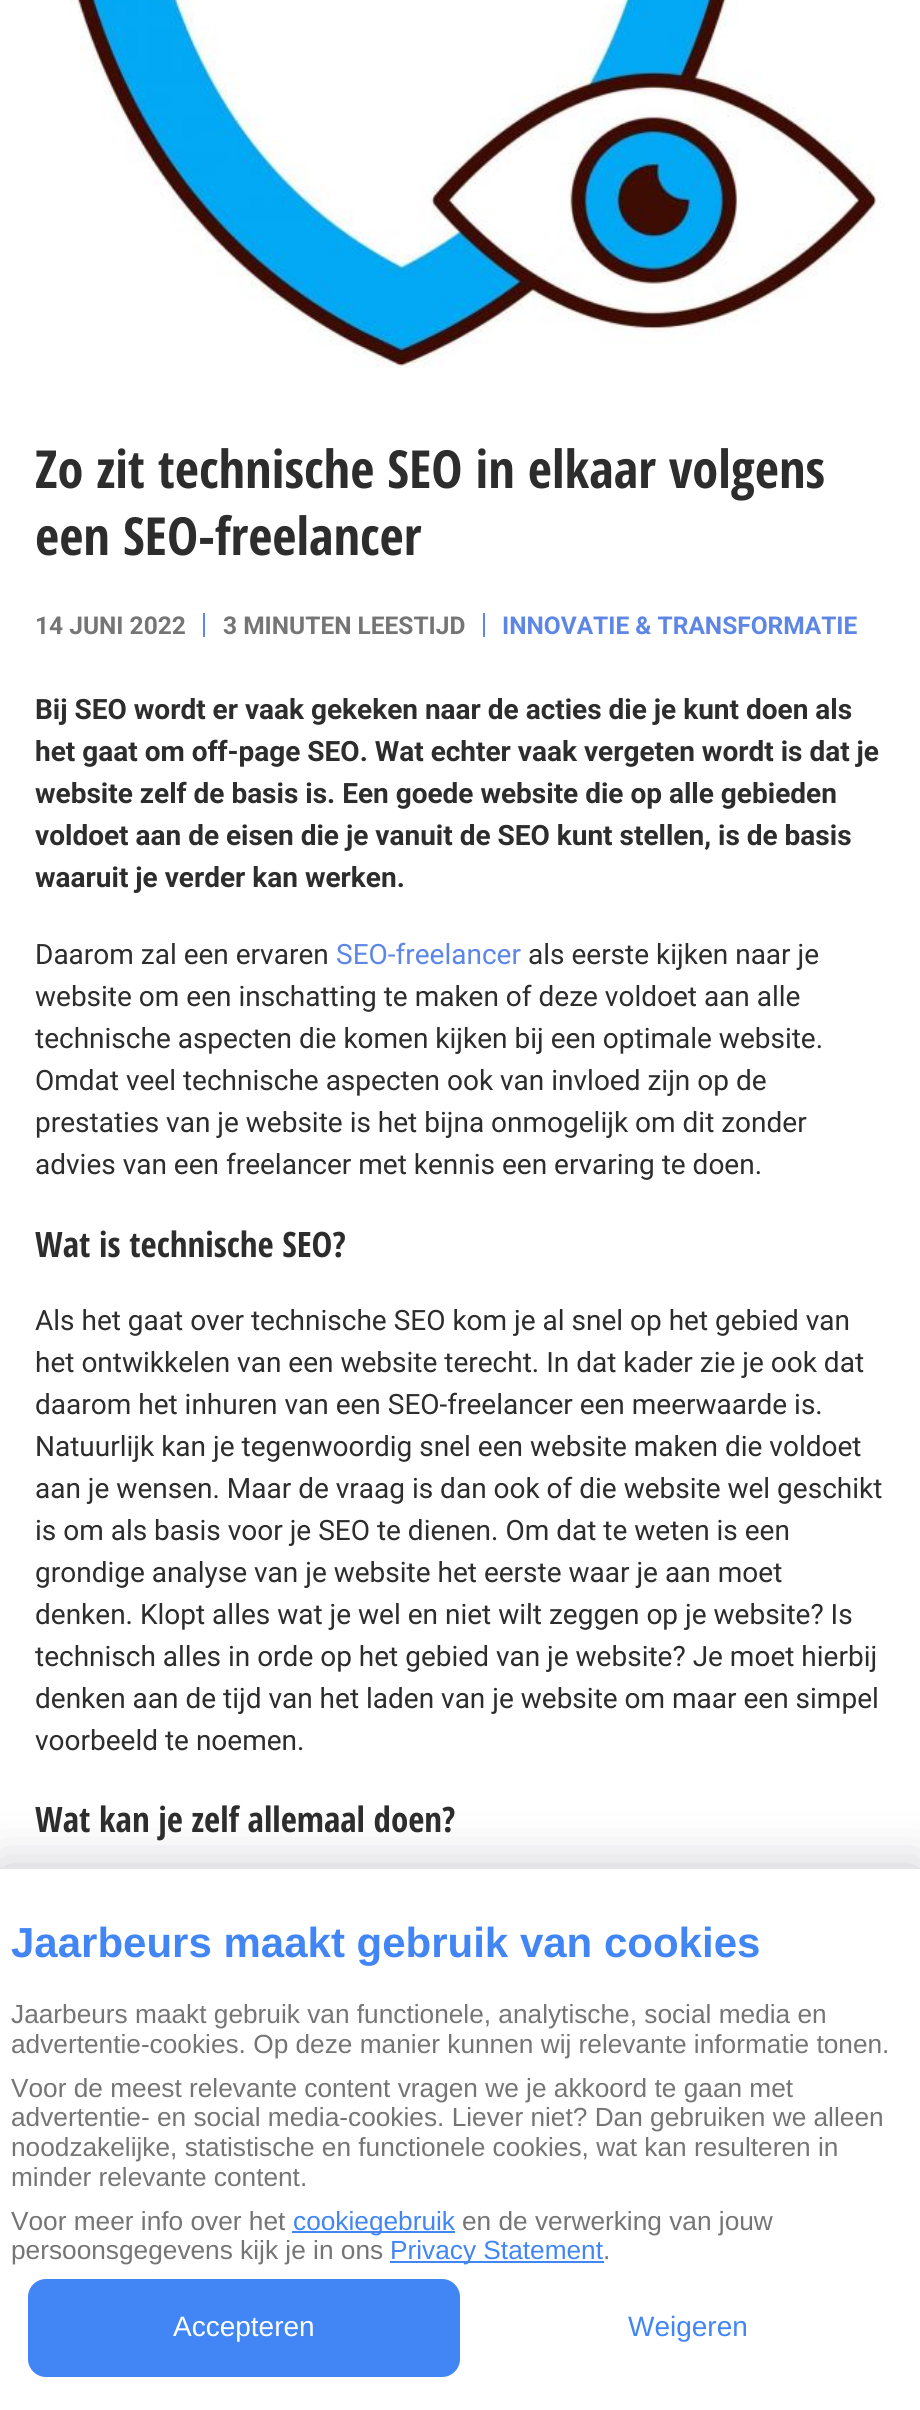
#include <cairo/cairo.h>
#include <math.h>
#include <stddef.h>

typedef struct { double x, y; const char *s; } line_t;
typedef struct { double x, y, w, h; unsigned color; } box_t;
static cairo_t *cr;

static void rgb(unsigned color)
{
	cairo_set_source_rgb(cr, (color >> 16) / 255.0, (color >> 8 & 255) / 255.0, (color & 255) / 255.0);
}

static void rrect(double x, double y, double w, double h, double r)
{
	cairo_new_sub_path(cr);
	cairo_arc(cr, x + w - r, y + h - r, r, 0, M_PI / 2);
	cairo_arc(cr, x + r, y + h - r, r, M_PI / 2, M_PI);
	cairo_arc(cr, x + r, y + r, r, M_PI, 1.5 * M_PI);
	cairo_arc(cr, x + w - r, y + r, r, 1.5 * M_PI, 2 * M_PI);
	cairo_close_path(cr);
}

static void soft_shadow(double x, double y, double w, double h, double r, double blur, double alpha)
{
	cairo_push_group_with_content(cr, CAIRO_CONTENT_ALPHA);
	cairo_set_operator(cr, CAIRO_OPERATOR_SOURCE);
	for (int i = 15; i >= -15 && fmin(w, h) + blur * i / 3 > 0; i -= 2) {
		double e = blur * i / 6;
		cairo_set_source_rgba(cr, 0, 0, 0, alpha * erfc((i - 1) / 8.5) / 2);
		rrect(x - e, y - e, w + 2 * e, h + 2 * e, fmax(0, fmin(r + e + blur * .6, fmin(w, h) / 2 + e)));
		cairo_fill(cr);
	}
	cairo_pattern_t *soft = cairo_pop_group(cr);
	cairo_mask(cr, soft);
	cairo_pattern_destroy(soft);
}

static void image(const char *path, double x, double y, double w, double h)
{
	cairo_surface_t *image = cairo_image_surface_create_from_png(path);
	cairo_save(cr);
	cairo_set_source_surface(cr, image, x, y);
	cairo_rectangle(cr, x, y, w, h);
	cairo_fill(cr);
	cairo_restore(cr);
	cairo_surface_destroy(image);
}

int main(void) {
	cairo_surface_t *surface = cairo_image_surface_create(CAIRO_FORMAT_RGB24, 920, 2410);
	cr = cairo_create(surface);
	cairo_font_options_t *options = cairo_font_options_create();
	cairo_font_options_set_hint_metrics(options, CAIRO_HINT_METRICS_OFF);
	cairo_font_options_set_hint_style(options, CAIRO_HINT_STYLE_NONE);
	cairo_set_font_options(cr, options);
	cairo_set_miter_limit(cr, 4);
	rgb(0xffffff);
	cairo_paint(cr);
	image("img/1.png", 69, 0, 815, 368);
	rgb(0x5d86e5);
	cairo_rectangle(cr, 203, 613, 2, 24);
	cairo_fill(cr);
	cairo_rectangle(cr, 483, 613, 2, 24);
	cairo_fill(cr);
	rgb(0x070721);
	soft_shadow(0, 1867, 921, 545, 0, 26, 0.22);
	{
		static const box_t items[] = {
			{0, 1869, 920, 541, 0xffffff},
			{0, 1867, 920, 2, 0xe5e5e5},
			{292, 2231, 163, 2, 0x4285f4},
			{390, 2261, 214, 2, 0x4285f4},
		};
		for (size_t i = 0; i < sizeof items / sizeof *items; i++) {
			rgb(items[i].color);
			cairo_rectangle(cr, items[i].x, items[i].y, items[i].w, items[i].h);
			cairo_fill(cr);
		}
	}
	rrect(28, 2279, 432, 98, 18);
	cairo_fill(cr);
	cairo_select_font_face(cr, "Open Sans Condensed", CAIRO_FONT_SLANT_NORMAL, CAIRO_FONT_WEIGHT_BOLD);
	cairo_set_font_size(cr, 52.5);
	rgb(0x2d2d2e);
	cairo_move_to(cr, 35, 488);
	cairo_show_text(cr, "Zo zit technische SEO in elkaar volgens");
	cairo_move_to(cr, 35, 555);
	cairo_show_text(cr, "een SEO-freelancer");
	cairo_select_font_face(cr, "Roboto", CAIRO_FONT_SLANT_NORMAL, CAIRO_FONT_WEIGHT_BOLD);
	cairo_set_font_size(cr, 24.5);
	rgb(0x757575);
	cairo_move_to(cr, 35, 634);
	cairo_show_text(cr, "14 JUNI 2022");
	cairo_move_to(cr, 223, 634);
	cairo_show_text(cr, "3 MINUTEN LEESTIJD");
	rgb(0x5d86e5);
	cairo_move_to(cr, 502, 634);
	cairo_show_text(cr, "INNOVATIE & TRANSFORMATIE");
	cairo_set_font_size(cr, 28);
	rgb(0x2d2d2e);
	{
		static const line_t items[] = {
			{35, 719, "Bij SEO wordt er vaak gekeken naar de acties die je kunt doen als"},
			{35, 761, "het gaat om off-page SEO. Wat echter vaak vergeten wordt is dat je"},
			{35, 803, "website zelf de basis is. Een goede website die op alle gebieden"},
			{35, 845, "voldoet aan de eisen die je vanuit de SEO kunt stellen, is de basis"},
			{35, 887, "waaruit je verder kan werken."},
		};
		for (size_t i = 0; i < sizeof items / sizeof *items; i++) {
			cairo_move_to(cr, items[i].x, items[i].y);
			cairo_show_text(cr, items[i].s);
		}
	}
	cairo_select_font_face(cr, "Roboto", CAIRO_FONT_SLANT_NORMAL, CAIRO_FONT_WEIGHT_NORMAL);
	cairo_move_to(cr, 35, 964);
	cairo_show_text(cr, "Daarom zal een ervaren");
	rgb(0x5d86e5);
	cairo_move_to(cr, 336, 964);
	cairo_show_text(cr, "SEO-freelancer");
	rgb(0x2d2d2e);
	{
		static const line_t items[] = {
			{528, 964, "als eerste kijken naar je"},
			{35, 1006, "website om een inschatting te maken of deze voldoet aan alle"},
			{35, 1048, "technische aspecten die komen kijken bij een optimale website."},
			{35, 1090, "Omdat veel technische aspecten ook van invloed zijn op de"},
			{35, 1132, "prestaties van je website is het bijna onmogelijk om dit zonder"},
			{35, 1174, "advies van een freelancer met kennis een ervaring te doen."},
		};
		for (size_t i = 0; i < sizeof items / sizeof *items; i++) {
			cairo_move_to(cr, items[i].x, items[i].y);
			cairo_show_text(cr, items[i].s);
		}
	}
	cairo_select_font_face(cr, "Open Sans Condensed", CAIRO_FONT_SLANT_NORMAL, CAIRO_FONT_WEIGHT_BOLD);
	cairo_set_font_size(cr, 35);
	cairo_move_to(cr, 35, 1257);
	cairo_show_text(cr, "Wat is technische SEO?");
	cairo_select_font_face(cr, "Roboto", CAIRO_FONT_SLANT_NORMAL, CAIRO_FONT_WEIGHT_NORMAL);
	cairo_set_font_size(cr, 28);
	{
		static const line_t items[] = {
			{35, 1330, "Als het gaat over technische SEO kom je al snel op het gebied van"},
			{35, 1372, "het ontwikkelen van een website terecht. In dat kader zie je ook dat"},
			{35, 1414, "daarom het inhuren van een SEO-freelancer een meerwaarde is."},
			{35, 1456, "Natuurlijk kan je tegenwoordig snel een website maken die voldoet"},
			{35, 1498, "aan je wensen. Maar de vraag is dan ook of die website wel geschikt"},
			{35, 1540, "is om als basis voor je SEO te dienen. Om dat te weten is een"},
			{35, 1582, "grondige analyse van je website het eerste waar je aan moet"},
			{35, 1624, "denken. Klopt alles wat je wel en niet wilt zeggen op je website? Is"},
			{35, 1666, "technisch alles in orde op het gebied van je website? Je moet hierbij"},
			{35, 1708, "denken aan de tijd van het laden van je website om maar een simpel"},
			{35, 1750, "voorbeeld te noemen."},
		};
		for (size_t i = 0; i < sizeof items / sizeof *items; i++) {
			cairo_move_to(cr, items[i].x, items[i].y);
			cairo_show_text(cr, items[i].s);
		}
	}
	cairo_select_font_face(cr, "Open Sans Condensed", CAIRO_FONT_SLANT_NORMAL, CAIRO_FONT_WEIGHT_BOLD);
	cairo_set_font_size(cr, 35);
	cairo_move_to(cr, 35, 1832);
	cairo_show_text(cr, "Wat kan je zelf allemaal doen?");
	cairo_select_font_face(cr, "Liberation Sans", CAIRO_FONT_SLANT_NORMAL, CAIRO_FONT_WEIGHT_BOLD);
	cairo_set_font_size(cr, 42);
	rgb(0x4285f4);
	cairo_move_to(cr, 11, 1957);
	cairo_show_text(cr, "Jaarbeurs maakt gebruik van cookies");
	cairo_select_font_face(cr, "Liberation Sans", CAIRO_FONT_SLANT_NORMAL, CAIRO_FONT_WEIGHT_NORMAL);
	cairo_set_font_size(cr, 26.25);
	rgb(0x757575);
	{
		static const line_t items[] = {
			{11, 2023, "Jaarbeurs maakt gebruik van functionele, analytische, social media en"},
			{11, 2053, "advertentie-cookies. Op deze manier kunnen wij relevante informatie tonen."},
			{11, 2097, "Voor de meest relevante content vragen we je akkoord te gaan met"},
			{11, 2126, "advertentie- en social media-cookies. Liever niet? Dan gebruiken we alleen"},
			{11, 2156, "noodzakelijke, statistische en functionele cookies, wat kan resulteren in"},
			{11, 2186, "minder relevante content."},
			{11, 2230, "Voor meer info over het"},
		};
		for (size_t i = 0; i < sizeof items / sizeof *items; i++) {
			cairo_move_to(cr, items[i].x, items[i].y);
			cairo_show_text(cr, items[i].s);
		}
	}
	rgb(0x4285f4);
	cairo_move_to(cr, 293, 2230);
	cairo_show_text(cr, "cookiegebruik");
	rgb(0x757575);
	cairo_move_to(cr, 462, 2230);
	cairo_show_text(cr, "en de verwerking van jouw");
	cairo_move_to(cr, 11, 2259);
	cairo_show_text(cr, "persoonsgegevens kijk je in ons");
	rgb(0x4285f4);
	cairo_move_to(cr, 390, 2259);
	cairo_show_text(cr, "Privacy Statement");
	rgb(0x757575);
	cairo_move_to(cr, 603, 2259);
	cairo_show_text(cr, ".");
	cairo_set_font_size(cr, 28);
	rgb(0xffffff);
	cairo_move_to(cr, 173, 2336);
	cairo_show_text(cr, "Accepteren");
	rgb(0x4285f4);
	cairo_move_to(cr, 628, 2336);
	cairo_show_text(cr, "Weigeren");
	cairo_surface_write_to_png(surface, "page.png");
	cairo_font_options_destroy(options);
	cairo_destroy(cr);
	cairo_surface_destroy(surface);
	return 0;
}
